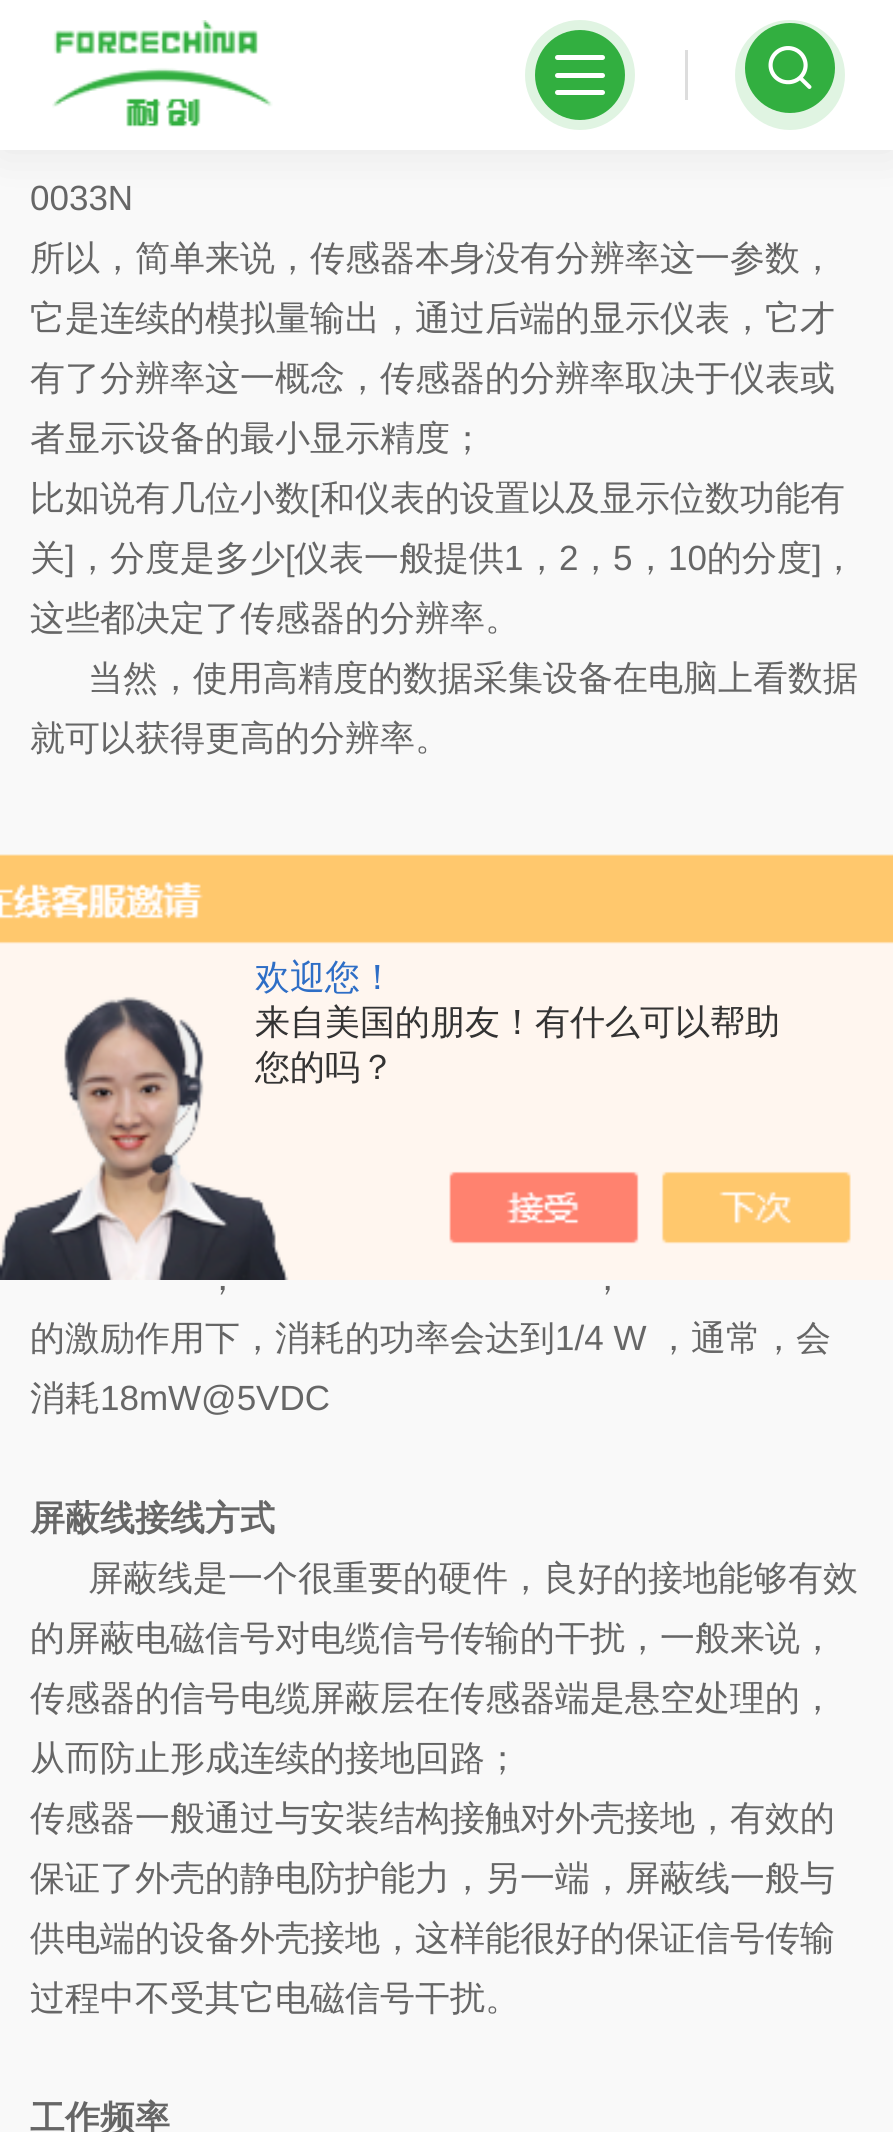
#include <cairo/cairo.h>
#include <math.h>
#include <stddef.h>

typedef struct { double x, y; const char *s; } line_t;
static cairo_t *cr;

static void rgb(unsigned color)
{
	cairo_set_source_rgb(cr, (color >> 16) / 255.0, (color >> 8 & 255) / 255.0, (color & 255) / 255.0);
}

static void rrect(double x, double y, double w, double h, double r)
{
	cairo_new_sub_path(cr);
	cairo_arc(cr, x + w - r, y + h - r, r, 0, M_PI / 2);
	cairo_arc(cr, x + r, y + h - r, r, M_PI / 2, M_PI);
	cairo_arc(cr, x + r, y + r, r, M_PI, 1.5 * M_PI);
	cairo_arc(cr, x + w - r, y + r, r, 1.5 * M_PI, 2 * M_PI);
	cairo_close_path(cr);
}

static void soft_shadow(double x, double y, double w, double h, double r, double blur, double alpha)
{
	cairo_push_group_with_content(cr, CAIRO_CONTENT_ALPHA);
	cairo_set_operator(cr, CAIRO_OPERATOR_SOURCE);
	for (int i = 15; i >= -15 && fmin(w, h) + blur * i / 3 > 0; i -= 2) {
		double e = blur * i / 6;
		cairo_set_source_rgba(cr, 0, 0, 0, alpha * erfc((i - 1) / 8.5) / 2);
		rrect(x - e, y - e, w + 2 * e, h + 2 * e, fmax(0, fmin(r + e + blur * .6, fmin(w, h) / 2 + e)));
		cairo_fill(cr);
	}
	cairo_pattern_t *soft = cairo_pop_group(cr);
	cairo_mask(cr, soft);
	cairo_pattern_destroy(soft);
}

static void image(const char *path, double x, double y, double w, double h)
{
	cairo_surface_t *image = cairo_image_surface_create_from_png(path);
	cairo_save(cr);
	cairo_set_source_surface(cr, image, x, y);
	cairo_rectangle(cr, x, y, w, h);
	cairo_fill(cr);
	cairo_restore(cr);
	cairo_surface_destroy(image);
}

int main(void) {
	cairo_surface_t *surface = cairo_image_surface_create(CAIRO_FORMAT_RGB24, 893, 2132);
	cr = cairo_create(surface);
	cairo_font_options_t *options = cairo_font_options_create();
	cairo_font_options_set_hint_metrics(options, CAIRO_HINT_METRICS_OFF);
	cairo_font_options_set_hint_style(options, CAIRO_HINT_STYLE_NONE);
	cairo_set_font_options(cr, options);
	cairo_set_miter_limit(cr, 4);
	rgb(0xf9f9f9);
	cairo_paint(cr);
	rgb(0x000000);
	soft_shadow(0, 0, 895, 150, 0, 25, 0.08);
	rgb(0xffffff);
	cairo_rectangle(cr, 0, 0, 893, 150);
	cairo_fill(cr);
	image("img/1.png", 52, 20, 221, 107);
	rgb(0xe0f4e2);
	cairo_arc(cr, 580, 75, 55, 0, 2 * M_PI);
	cairo_fill(cr);
	rgb(0x32af40);
	cairo_arc(cr, 580, 75, 45, 0, 2 * M_PI);
	cairo_fill(cr);
	rgb(0xffffff);
	rrect(555, 55, 50, 5, 2.5);
	cairo_fill(cr);
	rrect(555, 73, 50, 5, 2.5);
	cairo_fill(cr);
	rrect(555, 90, 50, 5, 2.5);
	cairo_fill(cr);
	rgb(0xdddddd);
	cairo_rectangle(cr, 685, 50, 3, 50);
	cairo_fill(cr);
	rgb(0xe0f4e2);
	cairo_arc(cr, 790, 75, 55, 0, 2 * M_PI);
	cairo_fill(cr);
	rgb(0x32af40);
	cairo_arc(cr, 790, 68, 45, 0, 2 * M_PI);
	cairo_fill(cr);
	image("img/2.png", 768, 46, 44, 43);
	image("img/3.png", 0, 854, 893, 426);
	cairo_select_font_face(cr, "Liberation Sans", CAIRO_FONT_SLANT_NORMAL, CAIRO_FONT_WEIGHT_NORMAL);
	cairo_set_font_size(cr, 35);
	rgb(0x666666);
	cairo_move_to(cr, 30, 210);
	cairo_show_text(cr, "0033N");
	cairo_select_font_face(cr, "WenQuanYi Zen Hei Medium", CAIRO_FONT_SLANT_NORMAL, CAIRO_FONT_WEIGHT_NORMAL);
	{
		static const line_t items[] = {
			{30, 270, "所以，简单来说，传感器本身没有分辨率这一参数，"},
			{30, 330, "它是连续的模拟量输出，通过后端的显示仪表，它才"},
			{30, 390, "有了分辨率这一概念，传感器的分辨率取决于仪表或"},
			{30, 450, "者显示设备的最小显示精度；"},
			{30, 510, "比如说有几位小数"},
		};
		for (size_t i = 0; i < sizeof items / sizeof *items; i++) {
			cairo_move_to(cr, items[i].x, items[i].y);
			cairo_show_text(cr, items[i].s);
		}
	}
	cairo_select_font_face(cr, "Liberation Sans", CAIRO_FONT_SLANT_NORMAL, CAIRO_FONT_WEIGHT_NORMAL);
	cairo_move_to(cr, 310, 510);
	cairo_show_text(cr, "[");
	cairo_select_font_face(cr, "WenQuanYi Zen Hei Medium", CAIRO_FONT_SLANT_NORMAL, CAIRO_FONT_WEIGHT_NORMAL);
	cairo_move_to(cr, 320, 510);
	cairo_show_text(cr, "和仪表的设置以及显示位数功能有");
	cairo_move_to(cr, 30, 570);
	cairo_show_text(cr, "关");
	cairo_select_font_face(cr, "Liberation Sans", CAIRO_FONT_SLANT_NORMAL, CAIRO_FONT_WEIGHT_NORMAL);
	cairo_move_to(cr, 65, 570);
	cairo_show_text(cr, "]");
	cairo_select_font_face(cr, "WenQuanYi Zen Hei Medium", CAIRO_FONT_SLANT_NORMAL, CAIRO_FONT_WEIGHT_NORMAL);
	cairo_move_to(cr, 75, 570);
	cairo_show_text(cr, "，分度是多少");
	cairo_select_font_face(cr, "Liberation Sans", CAIRO_FONT_SLANT_NORMAL, CAIRO_FONT_WEIGHT_NORMAL);
	cairo_move_to(cr, 285, 570);
	cairo_show_text(cr, "[");
	cairo_select_font_face(cr, "WenQuanYi Zen Hei Medium", CAIRO_FONT_SLANT_NORMAL, CAIRO_FONT_WEIGHT_NORMAL);
	cairo_move_to(cr, 294, 570);
	cairo_show_text(cr, "仪表一般提供");
	cairo_select_font_face(cr, "Liberation Sans", CAIRO_FONT_SLANT_NORMAL, CAIRO_FONT_WEIGHT_NORMAL);
	cairo_move_to(cr, 504, 570);
	cairo_show_text(cr, "1");
	cairo_select_font_face(cr, "WenQuanYi Zen Hei Medium", CAIRO_FONT_SLANT_NORMAL, CAIRO_FONT_WEIGHT_NORMAL);
	cairo_move_to(cr, 524, 570);
	cairo_show_text(cr, "，");
	cairo_select_font_face(cr, "Liberation Sans", CAIRO_FONT_SLANT_NORMAL, CAIRO_FONT_WEIGHT_NORMAL);
	cairo_move_to(cr, 559, 570);
	cairo_show_text(cr, "2");
	cairo_select_font_face(cr, "WenQuanYi Zen Hei Medium", CAIRO_FONT_SLANT_NORMAL, CAIRO_FONT_WEIGHT_NORMAL);
	cairo_move_to(cr, 578, 570);
	cairo_show_text(cr, "，");
	cairo_select_font_face(cr, "Liberation Sans", CAIRO_FONT_SLANT_NORMAL, CAIRO_FONT_WEIGHT_NORMAL);
	cairo_move_to(cr, 613, 570);
	cairo_show_text(cr, "5");
	cairo_select_font_face(cr, "WenQuanYi Zen Hei Medium", CAIRO_FONT_SLANT_NORMAL, CAIRO_FONT_WEIGHT_NORMAL);
	cairo_move_to(cr, 633, 570);
	cairo_show_text(cr, "，");
	cairo_select_font_face(cr, "Liberation Sans", CAIRO_FONT_SLANT_NORMAL, CAIRO_FONT_WEIGHT_NORMAL);
	cairo_move_to(cr, 668, 570);
	cairo_show_text(cr, "10");
	cairo_select_font_face(cr, "WenQuanYi Zen Hei Medium", CAIRO_FONT_SLANT_NORMAL, CAIRO_FONT_WEIGHT_NORMAL);
	cairo_move_to(cr, 707, 570);
	cairo_show_text(cr, "的分度");
	cairo_select_font_face(cr, "Liberation Sans", CAIRO_FONT_SLANT_NORMAL, CAIRO_FONT_WEIGHT_NORMAL);
	cairo_move_to(cr, 812, 570);
	cairo_show_text(cr, "]");
	cairo_select_font_face(cr, "WenQuanYi Zen Hei Medium", CAIRO_FONT_SLANT_NORMAL, CAIRO_FONT_WEIGHT_NORMAL);
	{
		static const line_t items[] = {
			{821, 570, "，"},
			{30, 630, "这些都决定了传感器的分辨率。"},
			{88, 690, "当然，使用高精度的数据采集设备在电脑上看数据"},
			{30, 750, "就可以获得更高的分辨率。"},
			{205, 1290, "，"},
			{590, 1290, "，"},
			{30, 1350, "的激励作用下，消耗的功率会达到"},
		};
		for (size_t i = 0; i < sizeof items / sizeof *items; i++) {
			cairo_move_to(cr, items[i].x, items[i].y);
			cairo_show_text(cr, items[i].s);
		}
	}
	cairo_select_font_face(cr, "Liberation Sans", CAIRO_FONT_SLANT_NORMAL, CAIRO_FONT_WEIGHT_NORMAL);
	cairo_move_to(cr, 555, 1350);
	cairo_show_text(cr, "1/4 W");
	cairo_select_font_face(cr, "WenQuanYi Zen Hei Medium", CAIRO_FONT_SLANT_NORMAL, CAIRO_FONT_WEIGHT_NORMAL);
	cairo_move_to(cr, 656, 1350);
	cairo_show_text(cr, "，通常，会");
	cairo_move_to(cr, 30, 1410);
	cairo_show_text(cr, "消耗");
	cairo_select_font_face(cr, "Liberation Sans", CAIRO_FONT_SLANT_NORMAL, CAIRO_FONT_WEIGHT_NORMAL);
	cairo_move_to(cr, 100, 1410);
	cairo_show_text(cr, "18mW@5VDC");
	cairo_select_font_face(cr, "WenQuanYi Zen Hei", CAIRO_FONT_SLANT_NORMAL, CAIRO_FONT_WEIGHT_BOLD);
	cairo_move_to(cr, 30, 1530);
	cairo_show_text(cr, "屏蔽线接线方式");
	cairo_select_font_face(cr, "WenQuanYi Zen Hei Medium", CAIRO_FONT_SLANT_NORMAL, CAIRO_FONT_WEIGHT_NORMAL);
	{
		static const line_t items[] = {
			{88, 1590, "屏蔽线是一个很重要的硬件，良好的接地能够有效"},
			{30, 1650, "的屏蔽电磁信号对电缆信号传输的干扰，一般来说，"},
			{30, 1710, "传感器的信号电缆屏蔽层在传感器端是悬空处理的，"},
			{30, 1770, "从而防止形成连续的接地回路；"},
			{30, 1830, "传感器一般通过与安装结构接触对外壳接地，有效的"},
			{30, 1890, "保证了外壳的静电防护能力，另一端，屏蔽线一般与"},
			{30, 1950, "供电端的设备外壳接地，这样能很好的保证信号传输"},
			{30, 2010, "过程中不受其它电磁信号干扰。"},
		};
		for (size_t i = 0; i < sizeof items / sizeof *items; i++) {
			cairo_move_to(cr, items[i].x, items[i].y);
			cairo_show_text(cr, items[i].s);
		}
	}
	cairo_select_font_face(cr, "WenQuanYi Zen Hei", CAIRO_FONT_SLANT_NORMAL, CAIRO_FONT_WEIGHT_BOLD);
	cairo_move_to(cr, 30, 2130);
	cairo_show_text(cr, "工作频率");
	cairo_select_font_face(cr, "WenQuanYi Zen Hei Medium", CAIRO_FONT_SLANT_NORMAL, CAIRO_FONT_WEIGHT_NORMAL);
	rgb(0x2e6ec6);
	cairo_move_to(cr, 255, 989);
	cairo_show_text(cr, "欢迎您！");
	rgb(0x333333);
	cairo_move_to(cr, 255, 1034);
	cairo_show_text(cr, "来自美国的朋友！有什么可以帮助");
	cairo_move_to(cr, 255, 1079);
	cairo_show_text(cr, "您的吗？");
	cairo_surface_write_to_png(surface, "page.png");
	cairo_font_options_destroy(options);
	cairo_destroy(cr);
	cairo_surface_destroy(surface);
	return 0;
}
